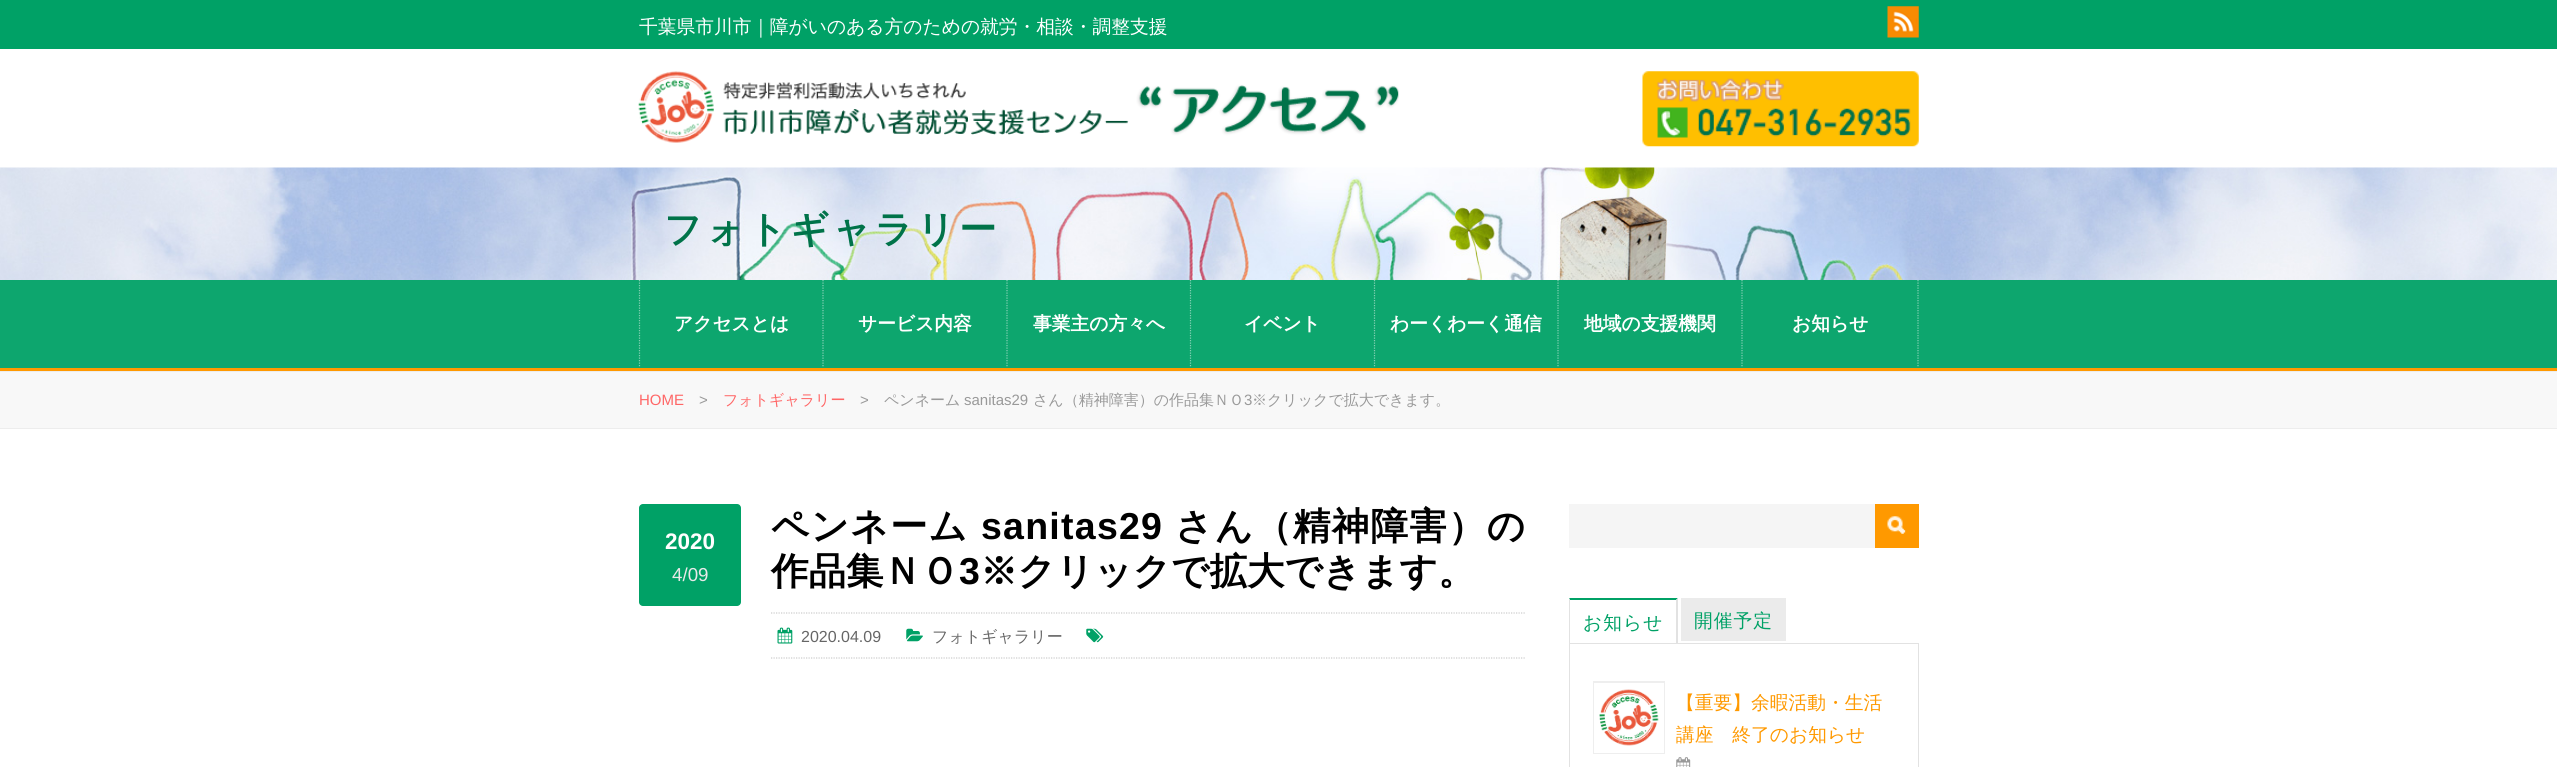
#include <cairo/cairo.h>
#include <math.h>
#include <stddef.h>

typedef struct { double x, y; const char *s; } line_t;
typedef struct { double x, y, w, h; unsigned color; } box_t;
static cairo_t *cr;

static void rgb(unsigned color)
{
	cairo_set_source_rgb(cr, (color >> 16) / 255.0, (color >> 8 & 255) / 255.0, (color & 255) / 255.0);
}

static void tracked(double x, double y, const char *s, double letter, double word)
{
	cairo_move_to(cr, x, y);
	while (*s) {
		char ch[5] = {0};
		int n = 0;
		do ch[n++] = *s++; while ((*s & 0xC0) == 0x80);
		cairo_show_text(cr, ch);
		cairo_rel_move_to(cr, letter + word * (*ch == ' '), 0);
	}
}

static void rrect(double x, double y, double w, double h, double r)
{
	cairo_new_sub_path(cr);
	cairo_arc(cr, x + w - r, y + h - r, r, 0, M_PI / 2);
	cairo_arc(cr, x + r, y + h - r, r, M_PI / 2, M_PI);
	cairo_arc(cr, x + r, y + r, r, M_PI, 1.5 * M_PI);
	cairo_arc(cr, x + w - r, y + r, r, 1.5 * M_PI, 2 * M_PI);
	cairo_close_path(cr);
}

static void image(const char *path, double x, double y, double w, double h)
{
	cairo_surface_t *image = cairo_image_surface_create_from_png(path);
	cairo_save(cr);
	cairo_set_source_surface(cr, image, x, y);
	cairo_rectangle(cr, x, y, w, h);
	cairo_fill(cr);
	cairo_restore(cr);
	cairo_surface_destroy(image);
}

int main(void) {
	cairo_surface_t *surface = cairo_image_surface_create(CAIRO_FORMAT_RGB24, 2557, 767);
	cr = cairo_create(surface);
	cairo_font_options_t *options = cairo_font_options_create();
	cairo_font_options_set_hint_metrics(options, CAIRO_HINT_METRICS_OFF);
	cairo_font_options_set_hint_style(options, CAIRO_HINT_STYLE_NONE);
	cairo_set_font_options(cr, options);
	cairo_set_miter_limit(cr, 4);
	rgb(0xffffff);
	cairo_paint(cr);
	rgb(0x00a166);
	cairo_rectangle(cr, 0, 0, 2557, 49);
	cairo_fill(cr);
	image("img/1.png", 1887, 6, 32, 32);
	image("img/2.png", 638, 71, 761, 72);
	image("img/3.png", 1642, 71, 277, 76);
	image("img/4.png", 0, 167, 2557, 113);
	rgb(0x0da66e);
	cairo_rectangle(cr, 0, 280, 2557, 88);
	cairo_fill(cr);
	rgb(0xff9900);
	cairo_rectangle(cr, 0, 368, 2557, 3);
	cairo_fill(cr);
	cairo_new_path(cr);
	cairo_move_to(cr, 639.5, 280);
	cairo_line_to(cr, 639.5, 367.5);
	rgb(0x85cfb4);
	cairo_set_line_width(cr, 1.2);
	cairo_set_dash(cr, (double[]){1.25, 1.25}, 2, 0);
	cairo_stroke(cr);
	cairo_new_path(cr);
	cairo_move_to(cr, 823, 280);
	cairo_line_to(cr, 823, 367.5);
	cairo_stroke(cr);
	cairo_new_path(cr);
	cairo_move_to(cr, 1007, 280);
	cairo_line_to(cr, 1007, 367.5);
	cairo_stroke(cr);
	cairo_new_path(cr);
	cairo_move_to(cr, 1190.5, 280);
	cairo_line_to(cr, 1190.5, 367.5);
	cairo_stroke(cr);
	cairo_new_path(cr);
	cairo_move_to(cr, 1374.5, 280);
	cairo_line_to(cr, 1374.5, 367.5);
	cairo_stroke(cr);
	cairo_new_path(cr);
	cairo_move_to(cr, 1558, 280);
	cairo_line_to(cr, 1558, 367.5);
	cairo_stroke(cr);
	cairo_new_path(cr);
	cairo_move_to(cr, 1918, 280);
	cairo_line_to(cr, 1918, 367.5);
	cairo_stroke(cr);
	cairo_new_path(cr);
	cairo_move_to(cr, 1742, 280);
	cairo_line_to(cr, 1742, 367.5);
	cairo_stroke(cr);
	{
		static const box_t items[] = {
			{0, 372, 2557, 56, 0xf8f8f8},
			{0, 371, 2557, 1, 0xededed},
			{0, 428, 2557, 1, 0xededed},
		};
		for (size_t i = 0; i < sizeof items / sizeof *items; i++) {
			rgb(items[i].color);
			cairo_rectangle(cr, items[i].x, items[i].y, items[i].w, items[i].h);
			cairo_fill(cr);
		}
	}
	rgb(0x00a166);
	rrect(639, 504, 102, 102, 4);
	cairo_fill(cr);
	cairo_new_path(cr);
	cairo_move_to(cr, 771, 613);
	cairo_line_to(cr, 1526, 613);
	rgb(0xcccccc);
	cairo_stroke(cr);
	cairo_new_path(cr);
	cairo_move_to(cr, 771, 658);
	cairo_line_to(cr, 1526, 658);
	cairo_stroke(cr);
	image("img/5.png", 777, 627, 16, 17);
	image("img/6.png", 906, 628, 17, 14);
	image("img/7.png", 1086, 628, 18, 15);
	rgb(0xf5f5f5);
	cairo_rectangle(cr, 1569, 504, 306, 44);
	cairo_fill(cr);
	rgb(0xff9900);
	cairo_rectangle(cr, 1875, 504, 44, 44);
	cairo_fill(cr);
	image("img/8.png", 1887, 516, 19, 18);
	rgb(0x00a166);
	cairo_new_path(cr);
	cairo_move_to(cr, 1569, 598);
	cairo_line_to(cr, 1678, 598);
	cairo_line_to(cr, 1676, 600);
	cairo_line_to(cr, 1570, 600);
	cairo_close_path(cr);
	cairo_fill(cr);
	rgb(0xe2e2e2);
	cairo_new_path(cr);
	cairo_move_to(cr, 1678, 598);
	cairo_line_to(cr, 1678, 644);
	cairo_line_to(cr, 1676, 644);
	cairo_line_to(cr, 1676, 600);
	cairo_close_path(cr);
	cairo_fill(cr);
	cairo_new_path(cr);
	cairo_move_to(cr, 1569, 644);
	cairo_line_to(cr, 1569, 598);
	cairo_line_to(cr, 1570, 600);
	cairo_line_to(cr, 1570, 644);
	cairo_close_path(cr);
	cairo_fill(cr);
	rgb(0xebebeb);
	cairo_rectangle(cr, 1681, 598, 105, 43);
	cairo_fill(cr);
	cairo_rectangle(cr, 1569.5, 643.5, 349, 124);
	rgb(0xe2e2e2);
	cairo_set_line_width(cr, 1);
	cairo_set_dash(cr, NULL, 0, 0);
	cairo_stroke(cr);
	cairo_rectangle(cr, 1595.5, 683.5, 67, 68);
	rgb(0xeeeeee);
	cairo_set_line_width(cr, 5);
	cairo_stroke(cr);
	cairo_rectangle(cr, 1596, 685, 66, 66);
	rgb(0xffffff);
	cairo_set_line_width(cr, 4);
	cairo_stroke(cr);
	image("img/9.png", 1598, 686, 62, 63);
	image("img/10.png", 1676, 757, 15, 10);
	cairo_select_font_face(cr, "WenQuanYi Zen Hei Medium", CAIRO_FONT_SLANT_NORMAL, CAIRO_FONT_WEIGHT_NORMAL);
	cairo_set_font_size(cr, 18.75);
	cairo_move_to(cr, 639, 33);
	cairo_show_text(cr, "千葉県市川市｜障がいのある方のための就労・相談・調整支援");
	cairo_select_font_face(cr, "WenQuanYi Zen Hei", CAIRO_FONT_SLANT_NORMAL, CAIRO_FONT_WEIGHT_BOLD);
	cairo_set_font_size(cr, 37.5);
	rgb(0x007349);
	tracked(664, 242, "フォトギャラリー", 3.75, 0);
	cairo_set_font_size(cr, 18.75);
	rgb(0xffffff);
	{
		static const line_t items[] = {
			{674, 330, "アクセスとは"},
			{858, 330, "サービス内容"},
			{1033, 330, "事業主の方々へ"},
			{1244, 330, "イベント"},
			{1390, 330, "わーくわーく通信"},
			{1584, 330, "地域の支援機関"},
			{1792, 330, "お知らせ"},
		};
		for (size_t i = 0; i < sizeof items / sizeof *items; i++) {
			cairo_move_to(cr, items[i].x, items[i].y);
			cairo_show_text(cr, items[i].s);
		}
	}
	cairo_select_font_face(cr, "Liberation Sans", CAIRO_FONT_SLANT_NORMAL, CAIRO_FONT_WEIGHT_NORMAL);
	cairo_set_font_size(cr, 15);
	rgb(0xff6666);
	cairo_move_to(cr, 639, 405);
	cairo_show_text(cr, "HOME");
	rgb(0x999999);
	cairo_move_to(cr, 699, 405);
	cairo_show_text(cr, ">");
	cairo_select_font_face(cr, "WenQuanYi Zen Hei Medium", CAIRO_FONT_SLANT_NORMAL, CAIRO_FONT_WEIGHT_NORMAL);
	rgb(0xff6666);
	cairo_move_to(cr, 723, 405);
	cairo_show_text(cr, "フォトギャラリー");
	cairo_select_font_face(cr, "Liberation Sans", CAIRO_FONT_SLANT_NORMAL, CAIRO_FONT_WEIGHT_NORMAL);
	rgb(0x999999);
	cairo_move_to(cr, 860, 405);
	cairo_show_text(cr, ">");
	cairo_select_font_face(cr, "WenQuanYi Zen Hei Medium", CAIRO_FONT_SLANT_NORMAL, CAIRO_FONT_WEIGHT_NORMAL);
	cairo_move_to(cr, 884, 405);
	cairo_show_text(cr, "ペンネーム");
	cairo_select_font_face(cr, "Liberation Sans", CAIRO_FONT_SLANT_NORMAL, CAIRO_FONT_WEIGHT_NORMAL);
	cairo_move_to(cr, 964, 405);
	cairo_show_text(cr, "sanitas29");
	cairo_select_font_face(cr, "WenQuanYi Zen Hei Medium", CAIRO_FONT_SLANT_NORMAL, CAIRO_FONT_WEIGHT_NORMAL);
	cairo_move_to(cr, 1033, 405);
	cairo_show_text(cr, "さん（精神障害）の作品集ＮＯ");
	cairo_select_font_face(cr, "Liberation Sans", CAIRO_FONT_SLANT_NORMAL, CAIRO_FONT_WEIGHT_NORMAL);
	cairo_move_to(cr, 1244, 405);
	cairo_show_text(cr, "3");
	cairo_select_font_face(cr, "WenQuanYi Zen Hei Medium", CAIRO_FONT_SLANT_NORMAL, CAIRO_FONT_WEIGHT_NORMAL);
	cairo_move_to(cr, 1252, 405);
	cairo_show_text(cr, "※クリックで拡大できます。");
	cairo_select_font_face(cr, "Liberation Sans", CAIRO_FONT_SLANT_NORMAL, CAIRO_FONT_WEIGHT_BOLD);
	cairo_set_font_size(cr, 22.5);
	rgb(0xffffff);
	cairo_move_to(cr, 665, 549);
	cairo_show_text(cr, "2020");
	cairo_select_font_face(cr, "Liberation Sans", CAIRO_FONT_SLANT_NORMAL, CAIRO_FONT_WEIGHT_NORMAL);
	cairo_set_font_size(cr, 18.75);
	rgb(0xe9e9e9);
	cairo_move_to(cr, 672, 581);
	cairo_show_text(cr, "4/09");
	cairo_select_font_face(cr, "WenQuanYi Zen Hei", CAIRO_FONT_SLANT_NORMAL, CAIRO_FONT_WEIGHT_BOLD);
	cairo_set_font_size(cr, 37.5);
	rgb(0x000000);
	tracked(771, 539, "ペンネーム", 1.25, 0);
	cairo_select_font_face(cr, "Liberation Sans", CAIRO_FONT_SLANT_NORMAL, CAIRO_FONT_WEIGHT_BOLD);
	tracked(981, 539, "sanitas29", 1.25, 0);
	cairo_select_font_face(cr, "WenQuanYi Zen Hei", CAIRO_FONT_SLANT_NORMAL, CAIRO_FONT_WEIGHT_BOLD);
	tracked(1175, 539, "さん（精神障害）の", 1.25, 0);
	cairo_move_to(cr, 771, 584);
	cairo_show_text(cr, "作品集ＮＯ");
	cairo_select_font_face(cr, "Liberation Sans", CAIRO_FONT_SLANT_NORMAL, CAIRO_FONT_WEIGHT_BOLD);
	cairo_move_to(cr, 959, 584);
	cairo_show_text(cr, "3");
	cairo_select_font_face(cr, "WenQuanYi Zen Hei", CAIRO_FONT_SLANT_NORMAL, CAIRO_FONT_WEIGHT_BOLD);
	cairo_move_to(cr, 980, 584);
	cairo_show_text(cr, "※クリックで拡大できます。");
	cairo_select_font_face(cr, "Liberation Sans", CAIRO_FONT_SLANT_NORMAL, CAIRO_FONT_WEIGHT_NORMAL);
	cairo_set_font_size(cr, 16);
	rgb(0x666666);
	cairo_move_to(cr, 801, 642);
	cairo_show_text(cr, "2020.04.09");
	cairo_select_font_face(cr, "WenQuanYi Zen Hei Medium", CAIRO_FONT_SLANT_NORMAL, CAIRO_FONT_WEIGHT_NORMAL);
	cairo_move_to(cr, 932, 642);
	cairo_show_text(cr, "フォトギャラリー");
	cairo_set_font_size(cr, 18.75);
	rgb(0x00a166);
	tracked(1583, 629, "お知らせ", 1, 0);
	tracked(1694, 627, "開催予定", 1, 0);
	rgb(0xff9900);
	cairo_move_to(cr, 1676, 709);
	cairo_show_text(cr, "【重要】余暇活動・生活");
	cairo_move_to(cr, 1676, 741);
	cairo_show_text(cr, "講座　終了のお知らせ");
	cairo_surface_write_to_png(surface, "page.png");
	cairo_font_options_destroy(options);
	cairo_destroy(cr);
	cairo_surface_destroy(surface);
	return 0;
}
